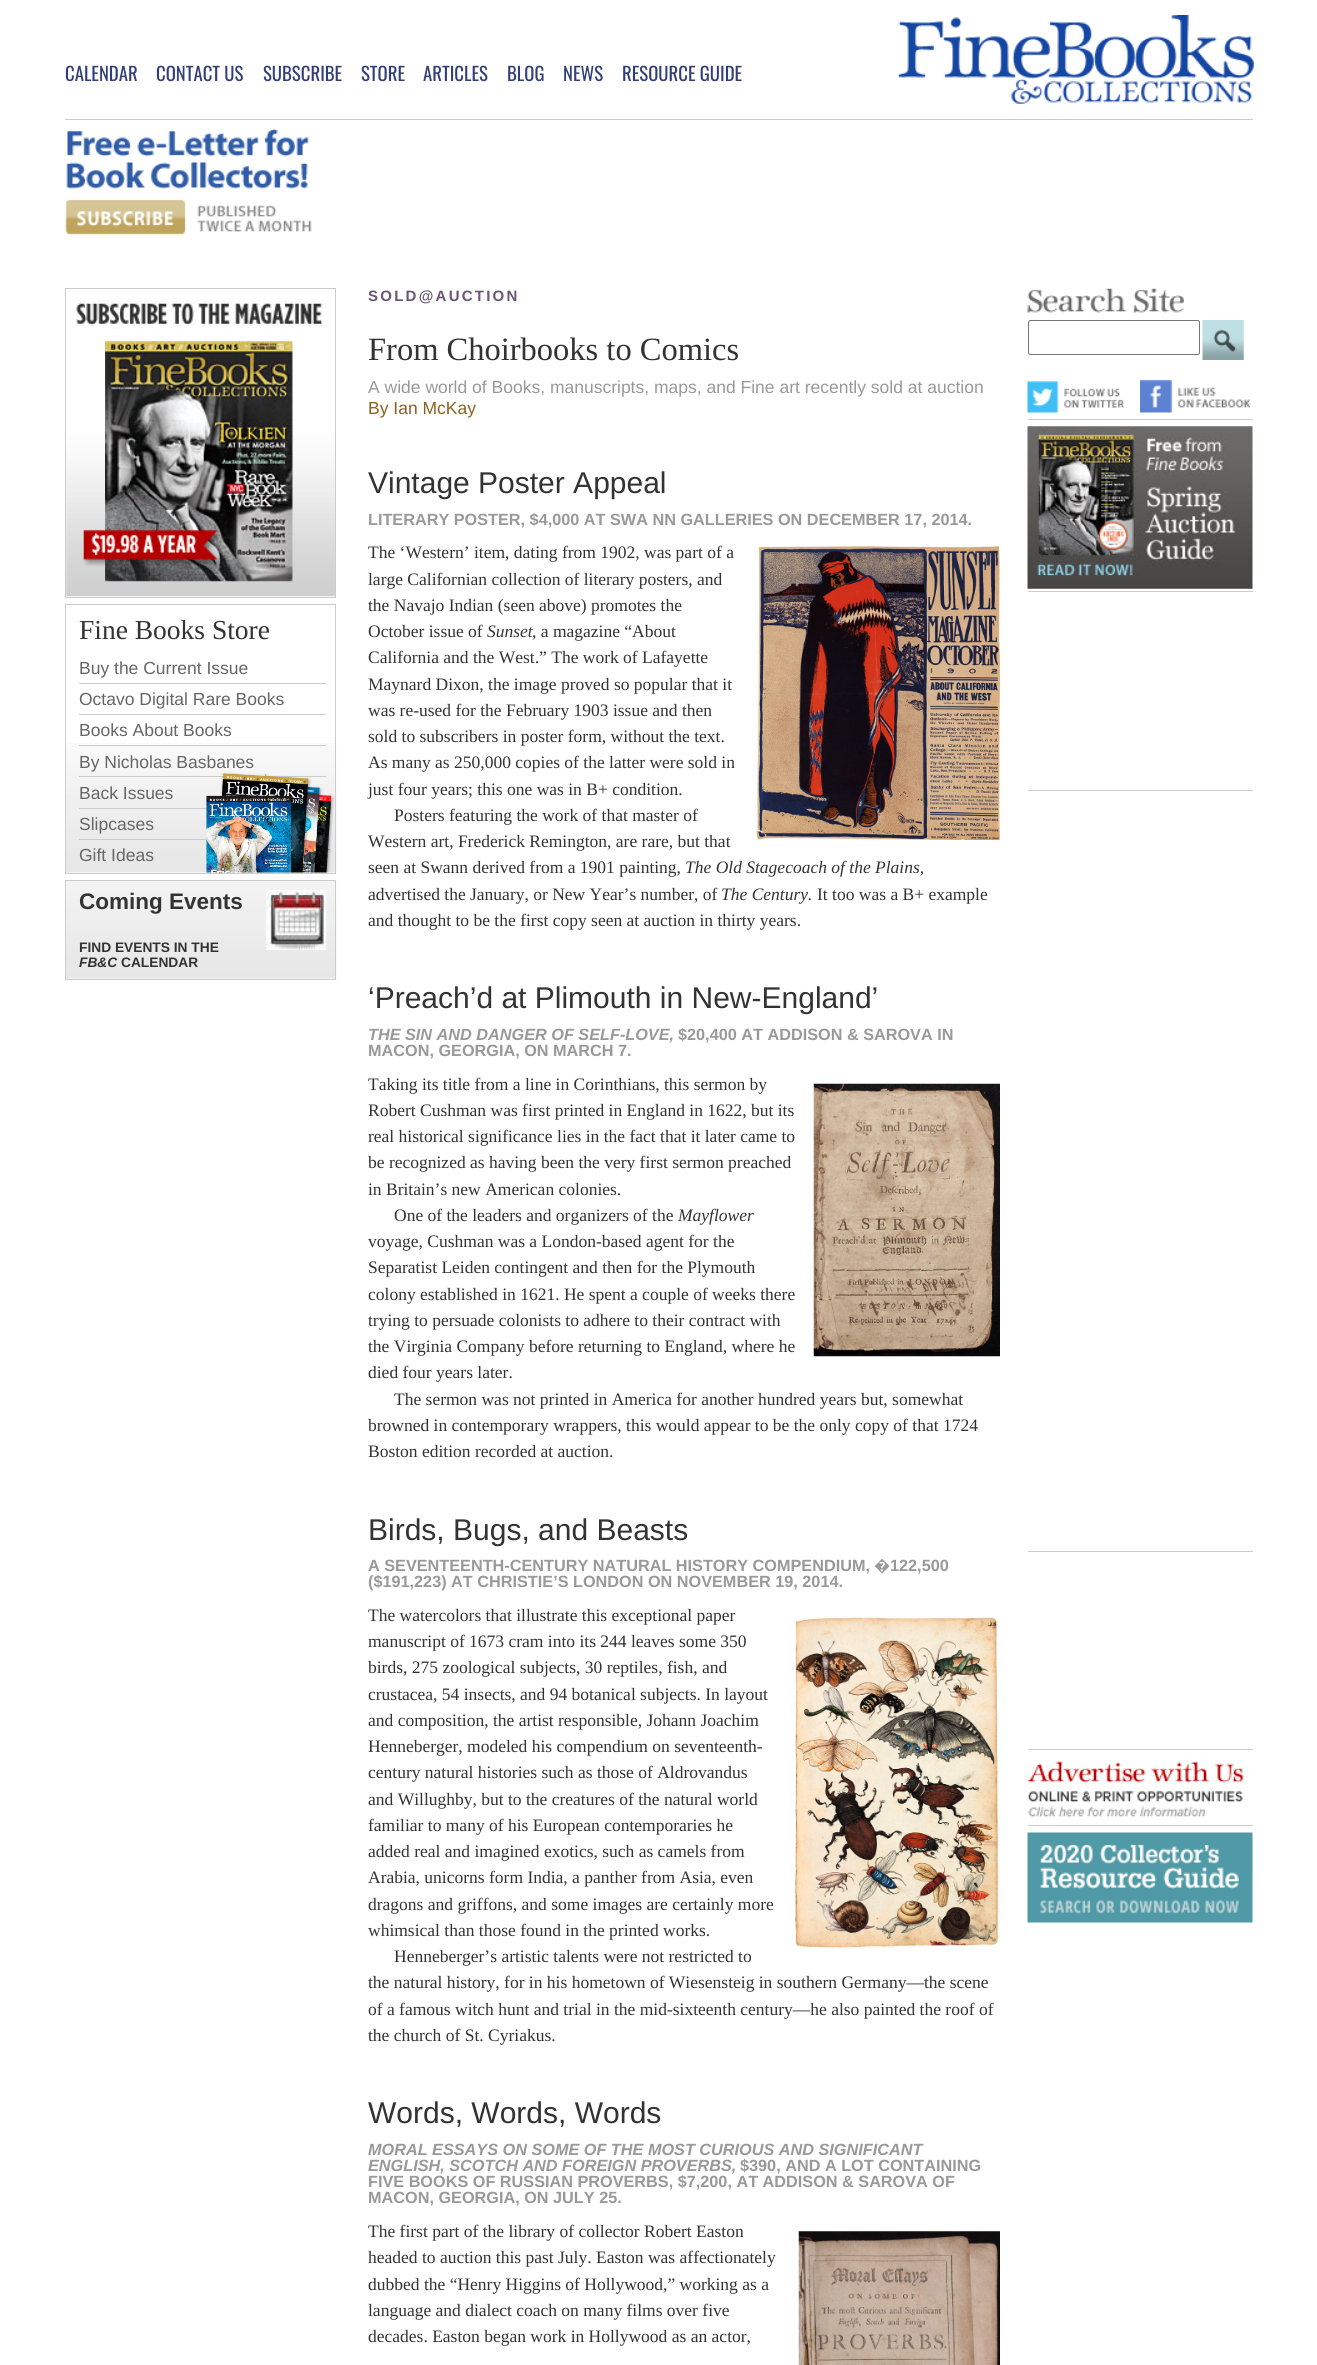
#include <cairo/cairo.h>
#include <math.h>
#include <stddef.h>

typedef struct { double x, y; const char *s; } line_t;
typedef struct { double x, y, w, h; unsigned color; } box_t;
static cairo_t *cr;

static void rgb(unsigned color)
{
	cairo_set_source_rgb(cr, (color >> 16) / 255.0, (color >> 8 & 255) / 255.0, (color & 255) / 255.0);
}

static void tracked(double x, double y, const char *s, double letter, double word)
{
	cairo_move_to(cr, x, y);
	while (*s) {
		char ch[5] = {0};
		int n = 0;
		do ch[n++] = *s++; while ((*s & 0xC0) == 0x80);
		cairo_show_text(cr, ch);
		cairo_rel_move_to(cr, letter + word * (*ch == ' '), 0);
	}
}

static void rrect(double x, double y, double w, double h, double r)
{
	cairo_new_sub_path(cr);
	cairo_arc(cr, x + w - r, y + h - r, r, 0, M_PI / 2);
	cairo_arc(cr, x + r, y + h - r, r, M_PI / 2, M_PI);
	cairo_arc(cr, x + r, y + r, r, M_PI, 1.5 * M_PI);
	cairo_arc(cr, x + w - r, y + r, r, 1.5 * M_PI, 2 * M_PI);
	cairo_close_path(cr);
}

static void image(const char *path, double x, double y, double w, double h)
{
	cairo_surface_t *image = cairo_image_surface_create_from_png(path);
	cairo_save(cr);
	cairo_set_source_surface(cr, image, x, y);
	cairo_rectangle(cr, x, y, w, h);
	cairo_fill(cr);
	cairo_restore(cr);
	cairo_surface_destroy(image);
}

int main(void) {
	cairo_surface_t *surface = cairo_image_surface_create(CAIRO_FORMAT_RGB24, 1317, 2365);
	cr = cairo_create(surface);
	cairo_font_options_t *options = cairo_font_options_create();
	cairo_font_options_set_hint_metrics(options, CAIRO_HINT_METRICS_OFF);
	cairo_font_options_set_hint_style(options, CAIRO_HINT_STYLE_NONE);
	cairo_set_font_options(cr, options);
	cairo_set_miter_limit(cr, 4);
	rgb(0xffffff);
	cairo_paint(cr);
	image("img/1.png", 898, 15, 356, 89);
	rgb(0xcccccc);
	cairo_rectangle(cr, 65, 119, 1188, 1);
	cairo_fill(cr);
	image("img/2.png", 65, 128, 247, 107);
	image("img/3.png", 66, 299, 269, 298);
	cairo_rectangle(cr, 65.5, 288.5, 270, 309);
	cairo_set_line_width(cr, 1);
	cairo_stroke(cr);
	image("img/4.png", 105, 341, 188, 241);
	image("img/5.png", 83, 529, 138, 37);
	image("img/6.png", 66, 743, 271, 130);
	cairo_rectangle(cr, 65.5, 604.5, 270, 269);
	cairo_stroke(cr);
	{
		static const box_t items[] = {
			{79, 683, 247, 1, 0xcccccc},
			{79, 714, 247, 1, 0xcccccc},
			{79, 745, 247, 1, 0xcccccc},
			{79, 776, 247, 1, 0xcccccc},
			{79, 808, 128, 1, 0xcccccc},
			{79, 839, 128, 1, 0xcccccc},
		};
		for (size_t i = 0; i < sizeof items / sizeof *items; i++) {
			rgb(items[i].color);
			cairo_rectangle(cr, items[i].x, items[i].y, items[i].w, items[i].h);
			cairo_fill(cr);
		}
	}
	image("img/7.png", 206, 772, 129, 101);
	image("img/8.png", 66, 880, 271, 99);
	cairo_rectangle(cr, 65.5, 880.5, 270, 99);
	cairo_stroke(cr);
	image("img/9.png", 266, 890, 61, 60);
	image("img/10.png", 756, 546, 244, 294);
	image("img/11.png", 813, 1083, 187, 274);
	image("img/12.png", 793, 1616, 207, 332);
	image("img/13.png", 798, 2231, 202, 134);
	image("img/14.png", 1027, 288, 157, 25);
	rrect(1028.5, 320.5, 171, 34, 2);
	rgb(0x767676);
	cairo_stroke(cr);
	image("img/15.png", 1202, 320, 42, 40);
	image("img/16.png", 1027, 381, 98, 32);
	image("img/17.png", 1140, 380, 111, 33);
	rgb(0xcccccc);
	cairo_rectangle(cr, 1028, 419, 225, 1);
	cairo_fill(cr);
	image("img/18.png", 1027, 426, 226, 163);
	{
		static const box_t items[] = {
			{1028, 591, 225, 1, 0xcccccc},
			{1028, 790, 225, 1, 0xcccccc},
			{1028, 1551, 225, 1, 0xcccccc},
			{1028, 1749, 225, 1, 0xcccccc},
		};
		for (size_t i = 0; i < sizeof items / sizeof *items; i++) {
			rgb(items[i].color);
			cairo_rectangle(cr, items[i].x, items[i].y, items[i].w, items[i].h);
			cairo_fill(cr);
		}
	}
	image("img/19.png", 1027, 1761, 217, 56);
	cairo_rectangle(cr, 1028, 1825, 225, 1);
	cairo_fill(cr);
	image("img/20.png", 1027, 1832, 226, 91);
	cairo_select_font_face(cr, "Oswald", CAIRO_FONT_SLANT_NORMAL, CAIRO_FONT_WEIGHT_NORMAL);
	cairo_set_font_size(cr, 18.75);
	rgb(0x323e79);
	{
		static const line_t items[] = {
			{65, 81, "CALENDAR"},
			{156, 81, "CONTACT US"},
			{263, 81, "SUBSCRIBE"},
			{361, 81, "STORE"},
			{423, 81, "ARTICLES"},
			{507, 81, "BLOG"},
			{563, 81, "NEWS"},
			{622, 81, "RESOURCE GUIDE"},
		};
		for (size_t i = 0; i < sizeof items / sizeof *items; i++) {
			cairo_move_to(cr, items[i].x, items[i].y);
			cairo_show_text(cr, items[i].s);
		}
	}
	cairo_select_font_face(cr, "Liberation Serif", CAIRO_FONT_SLANT_NORMAL, CAIRO_FONT_WEIGHT_NORMAL);
	cairo_set_font_size(cr, 27.5);
	rgb(0x333333);
	cairo_move_to(cr, 79, 639);
	cairo_show_text(cr, "Fine Books Store");
	cairo_select_font_face(cr, "Liberation Sans", CAIRO_FONT_SLANT_NORMAL, CAIRO_FONT_WEIGHT_NORMAL);
	cairo_set_font_size(cr, 17.5);
	rgb(0x666666);
	{
		static const line_t items[] = {
			{79, 674, "Buy the Current Issue"},
			{79, 705, "Octavo Digital Rare Books"},
			{79, 736, "Books About Books"},
			{79, 768, "By Nicholas Basbanes"},
			{79, 799, "Back Issues"},
			{79, 830, "Slipcases"},
			{79, 861, "Gift Ideas"},
		};
		for (size_t i = 0; i < sizeof items / sizeof *items; i++) {
			cairo_move_to(cr, items[i].x, items[i].y);
			cairo_show_text(cr, items[i].s);
		}
	}
	cairo_select_font_face(cr, "Liberation Sans", CAIRO_FONT_SLANT_NORMAL, CAIRO_FONT_WEIGHT_BOLD);
	cairo_set_font_size(cr, 22.5);
	rgb(0x333333);
	cairo_move_to(cr, 79, 909);
	cairo_show_text(cr, "Coming Events");
	cairo_set_font_size(cr, 13.75);
	cairo_move_to(cr, 79, 952);
	cairo_show_text(cr, "FIND EVENTS IN THE");
	cairo_select_font_face(cr, "Liberation Sans", CAIRO_FONT_SLANT_ITALIC, CAIRO_FONT_WEIGHT_BOLD);
	cairo_move_to(cr, 79, 967);
	cairo_show_text(cr, "FB&C");
	cairo_select_font_face(cr, "Liberation Sans", CAIRO_FONT_SLANT_NORMAL, CAIRO_FONT_WEIGHT_BOLD);
	cairo_move_to(cr, 121, 967);
	cairo_show_text(cr, "CALENDAR");
	cairo_set_font_size(cr, 15);
	rgb(0x685674);
	tracked(368, 301, "SOLD@AUCTION", 2.25, 0);
	cairo_select_font_face(cr, "Liberation Serif", CAIRO_FONT_SLANT_NORMAL, CAIRO_FONT_WEIGHT_NORMAL);
	cairo_set_font_size(cr, 32.5);
	rgb(0x333333);
	cairo_move_to(cr, 368, 360);
	cairo_show_text(cr, "From Choirbooks to Comics");
	cairo_select_font_face(cr, "Liberation Sans", CAIRO_FONT_SLANT_NORMAL, CAIRO_FONT_WEIGHT_NORMAL);
	cairo_set_font_size(cr, 17.5);
	rgb(0x999999);
	cairo_move_to(cr, 368, 393);
	cairo_show_text(cr, "A wide world of Books, manuscripts, maps, and Fine art recently sold at auction");
	rgb(0x8a611f);
	cairo_move_to(cr, 368, 414);
	cairo_show_text(cr, "By Ian McKay");
	cairo_set_font_size(cr, 30);
	rgb(0x333333);
	cairo_move_to(cr, 368, 493);
	cairo_show_text(cr, "Vintage Poster Appeal");
	cairo_select_font_face(cr, "Liberation Sans", CAIRO_FONT_SLANT_NORMAL, CAIRO_FONT_WEIGHT_BOLD);
	cairo_set_font_size(cr, 16.25);
	rgb(0x999999);
	cairo_move_to(cr, 368, 525);
	cairo_show_text(cr, "LITERARY POSTER, $4,000 AT SWA NN GALLERIES ON DECEMBER 17, 2014.");
	cairo_select_font_face(cr, "Liberation Serif", CAIRO_FONT_SLANT_NORMAL, CAIRO_FONT_WEIGHT_NORMAL);
	cairo_set_font_size(cr, 17.5);
	rgb(0x333333);
	{
		static const line_t items[] = {
			{368, 558, "The ‘Western’ item, dating from 1902, was part of a"},
			{368, 585, "large Californian collection of literary posters, and"},
			{368, 611, "the Navajo Indian (seen above) promotes the"},
			{368, 637, "October issue of"},
		};
		for (size_t i = 0; i < sizeof items / sizeof *items; i++) {
			cairo_move_to(cr, items[i].x, items[i].y);
			cairo_show_text(cr, items[i].s);
		}
	}
	cairo_select_font_face(cr, "Liberation Serif", CAIRO_FONT_SLANT_ITALIC, CAIRO_FONT_WEIGHT_NORMAL);
	cairo_move_to(cr, 487, 637);
	cairo_show_text(cr, "Sunset");
	cairo_select_font_face(cr, "Liberation Serif", CAIRO_FONT_SLANT_NORMAL, CAIRO_FONT_WEIGHT_NORMAL);
	{
		static const line_t items[] = {
			{532, 637, ", a magazine “About"},
			{368, 663, "California and the West.” The work of Lafayette"},
			{368, 690, "Maynard Dixon, the image proved so popular that it"},
			{368, 716, "was re-used for the February 1903 issue and then"},
			{368, 742, "sold to subscribers in poster form, without the text."},
			{368, 768, "As many as 250,000 copies of the latter were sold in"},
			{368, 795, "just four years; this one was in B+ condition."},
			{394, 821, "Posters featuring the work of that master of"},
			{368, 847, "Western art, Frederick Remington, are rare, but that"},
			{368, 873, "seen at Swann derived from a 1901 painting,"},
		};
		for (size_t i = 0; i < sizeof items / sizeof *items; i++) {
			cairo_move_to(cr, items[i].x, items[i].y);
			cairo_show_text(cr, items[i].s);
		}
	}
	cairo_select_font_face(cr, "Liberation Serif", CAIRO_FONT_SLANT_ITALIC, CAIRO_FONT_WEIGHT_NORMAL);
	cairo_move_to(cr, 685, 873);
	cairo_show_text(cr, "The Old Stagecoach of the Plains,");
	cairo_select_font_face(cr, "Liberation Serif", CAIRO_FONT_SLANT_NORMAL, CAIRO_FONT_WEIGHT_NORMAL);
	cairo_move_to(cr, 368, 900);
	cairo_show_text(cr, "advertised the January, or New Year’s number, of");
	cairo_select_font_face(cr, "Liberation Serif", CAIRO_FONT_SLANT_ITALIC, CAIRO_FONT_WEIGHT_NORMAL);
	cairo_move_to(cr, 721, 900);
	cairo_show_text(cr, "The Century.");
	cairo_select_font_face(cr, "Liberation Serif", CAIRO_FONT_SLANT_NORMAL, CAIRO_FONT_WEIGHT_NORMAL);
	cairo_move_to(cr, 817, 900);
	cairo_show_text(cr, "It too was a B+ example");
	cairo_move_to(cr, 368, 926);
	cairo_show_text(cr, "and thought to be the first copy seen at auction in thirty years.");
	cairo_select_font_face(cr, "Liberation Sans", CAIRO_FONT_SLANT_NORMAL, CAIRO_FONT_WEIGHT_NORMAL);
	cairo_set_font_size(cr, 30);
	cairo_move_to(cr, 368, 1008);
	cairo_show_text(cr, "‘Preach’d at Plimouth in New-England’");
	cairo_select_font_face(cr, "Liberation Sans", CAIRO_FONT_SLANT_ITALIC, CAIRO_FONT_WEIGHT_BOLD);
	cairo_set_font_size(cr, 16.25);
	rgb(0x999999);
	cairo_move_to(cr, 368, 1040);
	cairo_show_text(cr, "THE SIN AND DANGER OF SELF-LOVE,");
	cairo_select_font_face(cr, "Liberation Sans", CAIRO_FONT_SLANT_NORMAL, CAIRO_FONT_WEIGHT_BOLD);
	cairo_move_to(cr, 678, 1040);
	cairo_show_text(cr, "$20,400 AT ADDISON & SAROVA IN");
	cairo_move_to(cr, 368, 1056);
	cairo_show_text(cr, "MACON, GEORGIA, ON MARCH 7.");
	cairo_select_font_face(cr, "Liberation Serif", CAIRO_FONT_SLANT_NORMAL, CAIRO_FONT_WEIGHT_NORMAL);
	cairo_set_font_size(cr, 17.5);
	rgb(0x333333);
	{
		static const line_t items[] = {
			{368, 1090, "Taking its title from a line in Corinthians, this sermon by"},
			{368, 1116, "Robert Cushman was first printed in England in 1622, but its"},
			{368, 1142, "real historical significance lies in the fact that it later came to"},
			{368, 1168, "be recognized as having been the very first sermon preached"},
			{368, 1195, "in Britain’s new American colonies."},
			{394, 1221, "One of the leaders and organizers of the"},
		};
		for (size_t i = 0; i < sizeof items / sizeof *items; i++) {
			cairo_move_to(cr, items[i].x, items[i].y);
			cairo_show_text(cr, items[i].s);
		}
	}
	cairo_select_font_face(cr, "Liberation Serif", CAIRO_FONT_SLANT_ITALIC, CAIRO_FONT_WEIGHT_NORMAL);
	cairo_move_to(cr, 678, 1221);
	cairo_show_text(cr, "Mayflower");
	cairo_select_font_face(cr, "Liberation Serif", CAIRO_FONT_SLANT_NORMAL, CAIRO_FONT_WEIGHT_NORMAL);
	{
		static const line_t items[] = {
			{368, 1247, "voyage, Cushman was a London-based agent for the"},
			{368, 1273, "Separatist Leiden contingent and then for the Plymouth"},
			{368, 1300, "colony established in 1621. He spent a couple of weeks there"},
			{368, 1326, "trying to persuade colonists to adhere to their contract with"},
			{368, 1352, "the Virginia Company before returning to England, where he"},
			{368, 1378, "died four years later."},
			{394, 1405, "The sermon was not printed in America for another hundred years but, somewhat"},
			{368, 1431, "browned in contemporary wrappers, this would appear to be the only copy of that 1724"},
			{368, 1457, "Boston edition recorded at auction."},
		};
		for (size_t i = 0; i < sizeof items / sizeof *items; i++) {
			cairo_move_to(cr, items[i].x, items[i].y);
			cairo_show_text(cr, items[i].s);
		}
	}
	cairo_select_font_face(cr, "Liberation Sans", CAIRO_FONT_SLANT_NORMAL, CAIRO_FONT_WEIGHT_NORMAL);
	cairo_set_font_size(cr, 30);
	cairo_move_to(cr, 368, 1540);
	cairo_show_text(cr, "Birds, Bugs, and Beasts");
	cairo_select_font_face(cr, "Liberation Sans", CAIRO_FONT_SLANT_NORMAL, CAIRO_FONT_WEIGHT_BOLD);
	cairo_set_font_size(cr, 16.25);
	rgb(0x999999);
	cairo_move_to(cr, 368, 1571);
	cairo_show_text(cr, "A SEVENTEENTH-CENTURY NATURAL HISTORY COMPENDIUM,");
	cairo_select_font_face(cr, "Noto Sans", CAIRO_FONT_SLANT_NORMAL, CAIRO_FONT_WEIGHT_BOLD);
	cairo_move_to(cr, 874, 1571);
	cairo_show_text(cr, "�");
	cairo_select_font_face(cr, "Liberation Sans", CAIRO_FONT_SLANT_NORMAL, CAIRO_FONT_WEIGHT_BOLD);
	cairo_move_to(cr, 890, 1571);
	cairo_show_text(cr, "122,500");
	cairo_move_to(cr, 368, 1587);
	cairo_show_text(cr, "($191,223) AT CHRISTIE’S LONDON ON NOVEMBER 19, 2014.");
	cairo_select_font_face(cr, "Liberation Serif", CAIRO_FONT_SLANT_NORMAL, CAIRO_FONT_WEIGHT_NORMAL);
	cairo_set_font_size(cr, 17.5);
	rgb(0x333333);
	{
		static const line_t items[] = {
			{368, 1621, "The watercolors that illustrate this exceptional paper"},
			{368, 1647, "manuscript of 1673 cram into its 244 leaves some 350"},
			{368, 1673, "birds, 275 zoological subjects, 30 reptiles, fish, and"},
			{368, 1700, "crustacea, 54 insects, and 94 botanical subjects. In layout"},
			{368, 1726, "and composition, the artist responsible, Johann Joachim"},
			{368, 1752, "Henneberger, modeled his compendium on seventeenth-"},
			{368, 1778, "century natural histories such as those of Aldrovandus"},
			{368, 1805, "and Willughby, but to the creatures of the natural world"},
			{368, 1831, "familiar to many of his European contemporaries he"},
			{368, 1857, "added real and imagined exotics, such as camels from"},
			{368, 1883, "Arabia, unicorns form India, a panther from Asia, even"},
			{368, 1910, "dragons and griffons, and some images are certainly more"},
			{368, 1936, "whimsical than those found in the printed works."},
			{394, 1962, "Henneberger’s artistic talents were not restricted to"},
			{368, 1988, "the natural history, for in his hometown of Wiesensteig in southern Germany—the scene"},
			{368, 2015, "of a famous witch hunt and trial in the mid-sixteenth century—he also painted the roof of"},
			{368, 2041, "the church of St. Cyriakus."},
		};
		for (size_t i = 0; i < sizeof items / sizeof *items; i++) {
			cairo_move_to(cr, items[i].x, items[i].y);
			cairo_show_text(cr, items[i].s);
		}
	}
	cairo_select_font_face(cr, "Liberation Sans", CAIRO_FONT_SLANT_NORMAL, CAIRO_FONT_WEIGHT_NORMAL);
	cairo_set_font_size(cr, 30);
	cairo_move_to(cr, 368, 2123);
	cairo_show_text(cr, "Words, Words, Words");
	cairo_select_font_face(cr, "Liberation Sans", CAIRO_FONT_SLANT_ITALIC, CAIRO_FONT_WEIGHT_BOLD);
	cairo_set_font_size(cr, 16.25);
	rgb(0x999999);
	cairo_move_to(cr, 368, 2155);
	cairo_show_text(cr, "MORAL ESSAYS ON SOME OF THE MOST CURIOUS AND SIGNIFICANT");
	cairo_move_to(cr, 368, 2171);
	cairo_show_text(cr, "ENGLISH, SCOTCH AND FOREIGN PROVERBS,");
	cairo_select_font_face(cr, "Liberation Sans", CAIRO_FONT_SLANT_NORMAL, CAIRO_FONT_WEIGHT_BOLD);
	{
		static const line_t items[] = {
			{740, 2171, "$390, AND A LOT CONTAINING"},
			{368, 2187, "FIVE BOOKS OF RUSSIAN PROVERBS, $7,200, AT ADDISON & SAROVA OF"},
			{368, 2203, "MACON, GEORGIA, ON JULY 25."},
		};
		for (size_t i = 0; i < sizeof items / sizeof *items; i++) {
			cairo_move_to(cr, items[i].x, items[i].y);
			cairo_show_text(cr, items[i].s);
		}
	}
	cairo_select_font_face(cr, "Liberation Serif", CAIRO_FONT_SLANT_NORMAL, CAIRO_FONT_WEIGHT_NORMAL);
	cairo_set_font_size(cr, 17.5);
	rgb(0x333333);
	{
		static const line_t items[] = {
			{368, 2237, "The first part of the library of collector Robert Easton"},
			{368, 2263, "headed to auction this past July. Easton was affectionately"},
			{368, 2290, "dubbed the “Henry Higgins of Hollywood,” working as a"},
			{368, 2316, "language and dialect coach on many films over five"},
			{368, 2342, "decades. Easton began work in Hollywood as an actor,"},
		};
		for (size_t i = 0; i < sizeof items / sizeof *items; i++) {
			cairo_move_to(cr, items[i].x, items[i].y);
			cairo_show_text(cr, items[i].s);
		}
	}
	cairo_surface_write_to_png(surface, "page.png");
	cairo_font_options_destroy(options);
	cairo_destroy(cr);
	cairo_surface_destroy(surface);
	return 0;
}
